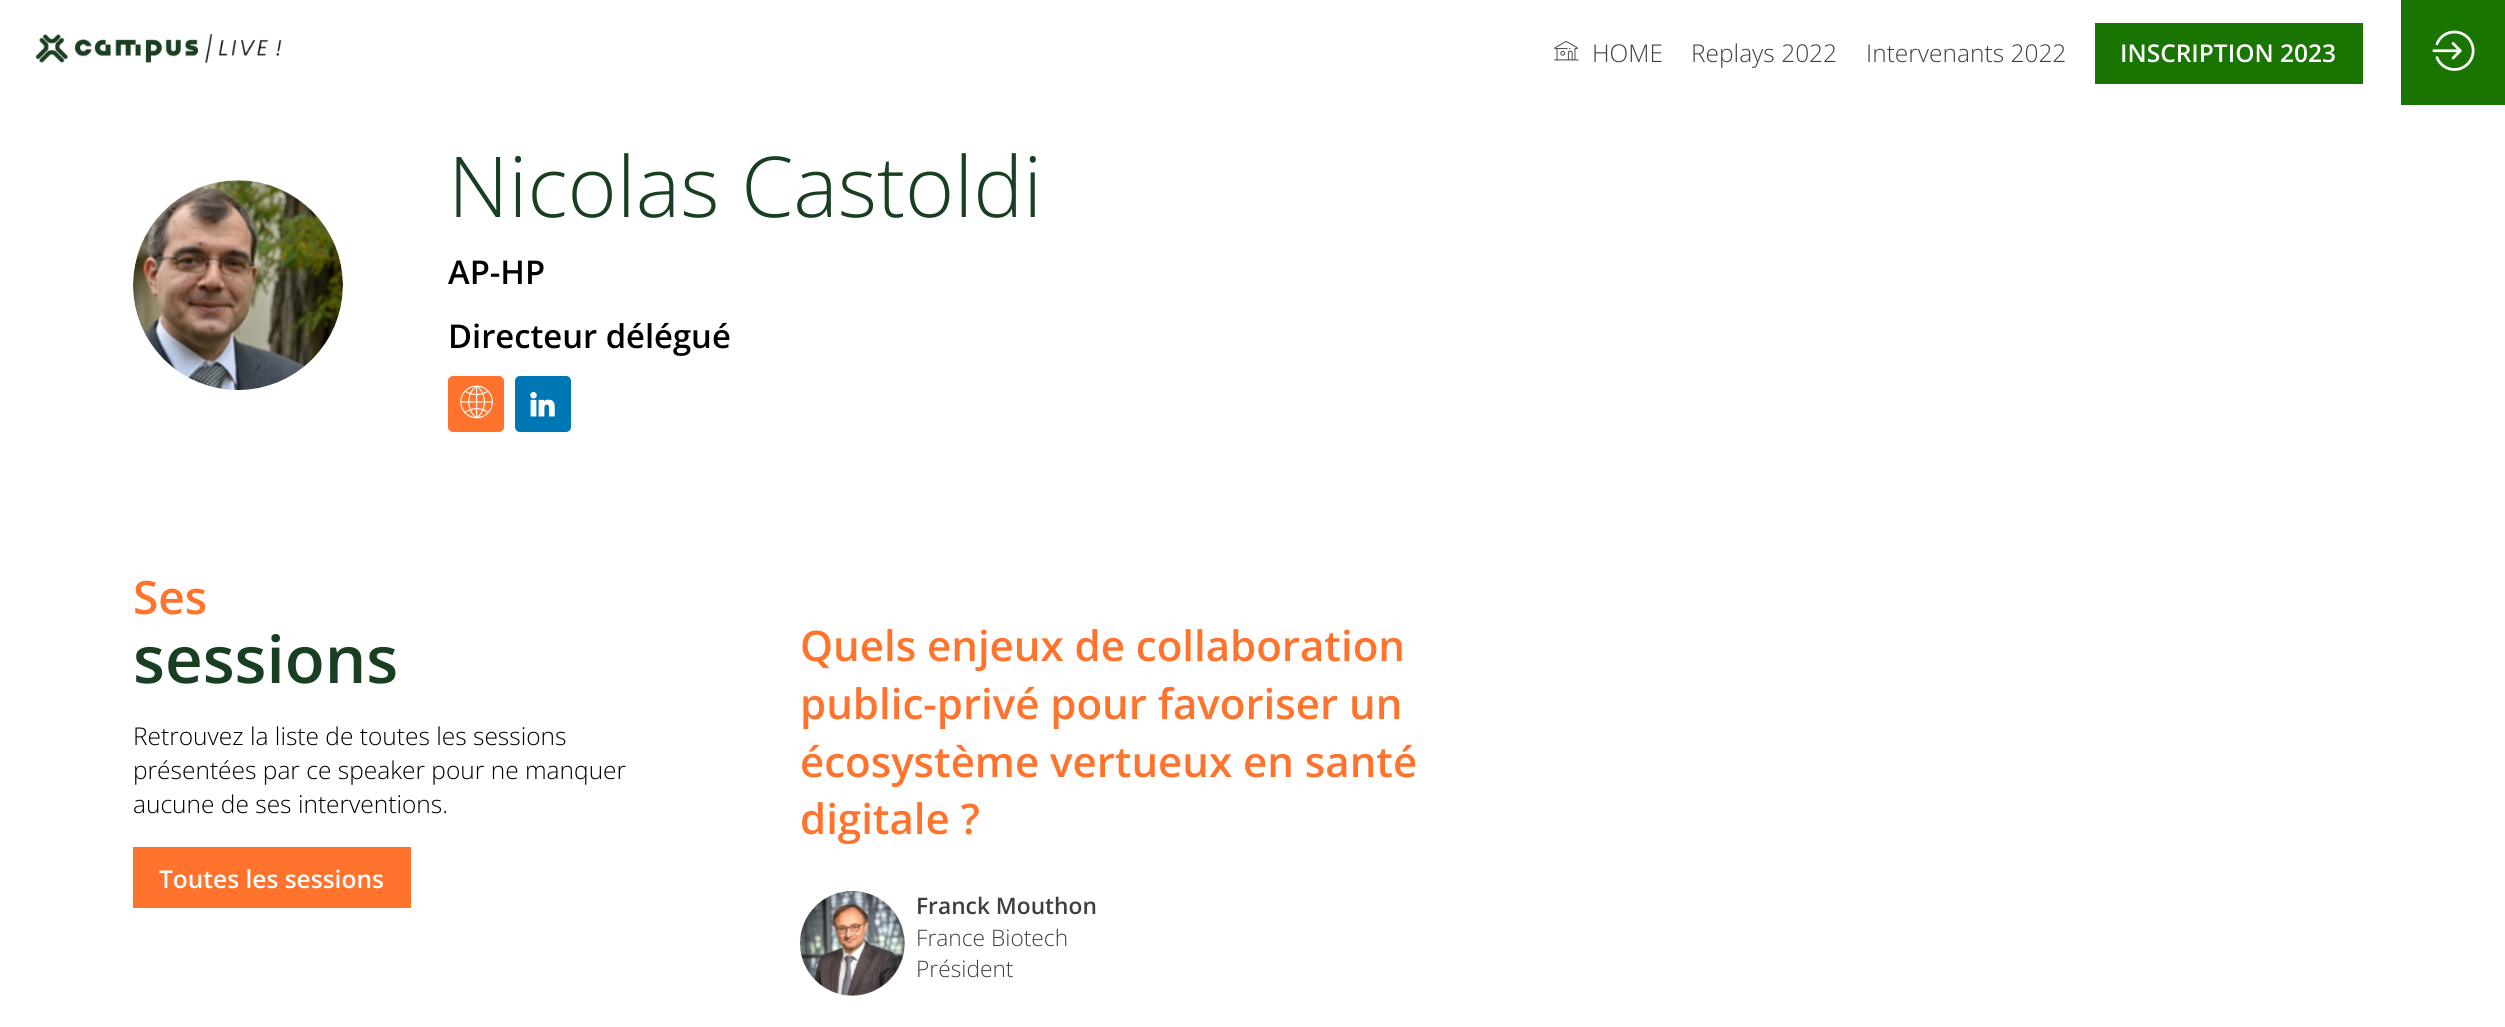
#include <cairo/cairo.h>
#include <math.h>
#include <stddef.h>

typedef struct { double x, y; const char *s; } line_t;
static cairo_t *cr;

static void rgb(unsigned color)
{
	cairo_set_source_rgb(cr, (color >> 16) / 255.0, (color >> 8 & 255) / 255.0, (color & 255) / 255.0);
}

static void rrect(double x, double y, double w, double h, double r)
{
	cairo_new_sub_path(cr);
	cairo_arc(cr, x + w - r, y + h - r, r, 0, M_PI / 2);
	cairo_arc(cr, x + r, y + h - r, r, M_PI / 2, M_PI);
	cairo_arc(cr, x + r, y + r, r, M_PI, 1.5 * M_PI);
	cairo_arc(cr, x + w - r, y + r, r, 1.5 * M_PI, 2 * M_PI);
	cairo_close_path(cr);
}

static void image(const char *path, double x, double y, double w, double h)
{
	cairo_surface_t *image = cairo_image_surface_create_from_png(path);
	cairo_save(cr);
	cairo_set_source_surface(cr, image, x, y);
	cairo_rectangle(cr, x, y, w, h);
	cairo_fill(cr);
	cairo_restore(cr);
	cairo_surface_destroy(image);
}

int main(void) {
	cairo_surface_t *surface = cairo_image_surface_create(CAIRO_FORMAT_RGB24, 2505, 1027);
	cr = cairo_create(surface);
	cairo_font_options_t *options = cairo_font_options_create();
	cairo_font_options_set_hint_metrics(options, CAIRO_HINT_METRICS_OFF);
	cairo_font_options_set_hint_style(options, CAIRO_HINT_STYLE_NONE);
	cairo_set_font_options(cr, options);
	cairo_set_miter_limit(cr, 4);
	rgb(0xffffff);
	cairo_paint(cr);
	image("img/1.png", 35, 33, 247, 30);
	image("img/2.png", 1554, 41, 25, 20);
	rgb(0x197401);
	cairo_rectangle(cr, 2095, 23, 268, 61);
	cairo_fill(cr);
	cairo_rectangle(cr, 2401, 0, 104, 105);
	cairo_fill(cr);
	image("img/3.png", 2432, 30, 43, 41);
	rgb(0xe9e9e9);
	cairo_arc(cr, 238, 285, 105, 0, 2 * M_PI);
	cairo_fill(cr);
	image("img/4.png", 133, 180, 210, 211);
	rgb(0xff732c);
	rrect(448, 376, 56, 56, 5);
	cairo_fill(cr);
	image("img/5.png", 460, 385, 33, 34);
	rgb(0x0077b5);
	rrect(515, 376, 56, 56, 5);
	cairo_fill(cr);
	image("img/6.png", 530, 392, 25, 25);
	rgb(0xff732c);
	cairo_rectangle(cr, 133, 847, 278, 61);
	cairo_fill(cr);
	rgb(0xe9e9e9);
	cairo_arc(cr, 852.5, 943.5, 52.5, 0, 2 * M_PI);
	cairo_fill(cr);
	image("img/7.png", 799, 890, 106, 106);
	cairo_select_font_face(cr, "Open Sans Light", CAIRO_FONT_SLANT_NORMAL, CAIRO_FONT_WEIGHT_NORMAL);
	cairo_set_font_size(cr, 24.5);
	rgb(0x3c4043);
	{
		static const line_t items[] = {
			{1592, 62, "HOME"},
			{1691, 62, "Replays 2022"},
			{1866, 62, "Intervenants 2022"},
		};
		for (size_t i = 0; i < sizeof items / sizeof *items; i++) {
			cairo_move_to(cr, items[i].x, items[i].y);
			cairo_show_text(cr, items[i].s);
		}
	}
	cairo_select_font_face(cr, "Open Sans SemiBold", CAIRO_FONT_SLANT_NORMAL, CAIRO_FONT_WEIGHT_NORMAL);
	rgb(0xffffff);
	cairo_move_to(cr, 2120, 62);
	cairo_show_text(cr, "INSCRIPTION 2023");
	cairo_select_font_face(cr, "Open Sans Light", CAIRO_FONT_SLANT_NORMAL, CAIRO_FONT_WEIGHT_NORMAL);
	cairo_set_font_size(cr, 84);
	rgb(0x1a3e22);
	cairo_move_to(cr, 448, 217);
	cairo_show_text(cr, "Nicolas Castoldi");
	cairo_select_font_face(cr, "Open Sans SemiBold", CAIRO_FONT_SLANT_NORMAL, CAIRO_FONT_WEIGHT_NORMAL);
	cairo_set_font_size(cr, 32.75);
	rgb(0x000000);
	cairo_move_to(cr, 448, 284);
	cairo_show_text(cr, "AP-HP");
	cairo_move_to(cr, 448, 348);
	cairo_show_text(cr, "Directeur délégué");
	cairo_set_font_size(cr, 46);
	rgb(0xff732c);
	cairo_move_to(cr, 133, 614);
	cairo_show_text(cr, "Ses");
	cairo_set_font_size(cr, 65.5);
	rgb(0x1a3e22);
	cairo_move_to(cr, 133, 683);
	cairo_show_text(cr, "sessions");
	cairo_select_font_face(cr, "Open Sans Light", CAIRO_FONT_SLANT_NORMAL, CAIRO_FONT_WEIGHT_NORMAL);
	cairo_set_font_size(cr, 24.5);
	rgb(0x000000);
	{
		static const line_t items[] = {
			{133, 745, "Retrouvez la liste de toutes les sessions"},
			{133, 779, "présentées par ce speaker pour ne manquer"},
			{133, 813, "aucune de ses interventions."},
		};
		for (size_t i = 0; i < sizeof items / sizeof *items; i++) {
			cairo_move_to(cr, items[i].x, items[i].y);
			cairo_show_text(cr, items[i].s);
		}
	}
	cairo_select_font_face(cr, "Open Sans SemiBold", CAIRO_FONT_SLANT_NORMAL, CAIRO_FONT_WEIGHT_NORMAL);
	rgb(0xffffff);
	cairo_move_to(cr, 159, 888);
	cairo_show_text(cr, "Toutes les sessions");
	cairo_set_font_size(cr, 42);
	rgb(0xff732c);
	{
		static const line_t items[] = {
			{800, 661, "Quels enjeux de collaboration"},
			{800, 719, "public-privé pour favoriser un"},
			{800, 777, "écosystème vertueux en santé"},
			{800, 834, "digitale ?"},
		};
		for (size_t i = 0; i < sizeof items / sizeof *items; i++) {
			cairo_move_to(cr, items[i].x, items[i].y);
			cairo_show_text(cr, items[i].s);
		}
	}
	cairo_set_font_size(cr, 22.75);
	rgb(0x3c4043);
	cairo_move_to(cr, 916, 914);
	cairo_show_text(cr, "Franck Mouthon");
	cairo_select_font_face(cr, "Open Sans Light", CAIRO_FONT_SLANT_NORMAL, CAIRO_FONT_WEIGHT_NORMAL);
	cairo_move_to(cr, 916, 946);
	cairo_show_text(cr, "France Biotech");
	cairo_move_to(cr, 916, 977);
	cairo_show_text(cr, "Président");
	cairo_surface_write_to_png(surface, "page.png");
	cairo_font_options_destroy(options);
	cairo_destroy(cr);
	cairo_surface_destroy(surface);
	return 0;
}
